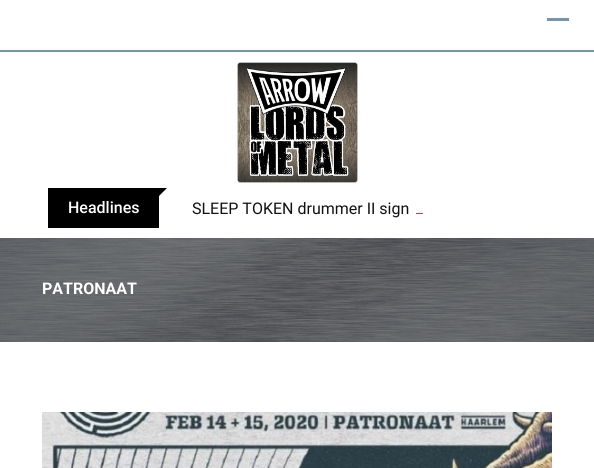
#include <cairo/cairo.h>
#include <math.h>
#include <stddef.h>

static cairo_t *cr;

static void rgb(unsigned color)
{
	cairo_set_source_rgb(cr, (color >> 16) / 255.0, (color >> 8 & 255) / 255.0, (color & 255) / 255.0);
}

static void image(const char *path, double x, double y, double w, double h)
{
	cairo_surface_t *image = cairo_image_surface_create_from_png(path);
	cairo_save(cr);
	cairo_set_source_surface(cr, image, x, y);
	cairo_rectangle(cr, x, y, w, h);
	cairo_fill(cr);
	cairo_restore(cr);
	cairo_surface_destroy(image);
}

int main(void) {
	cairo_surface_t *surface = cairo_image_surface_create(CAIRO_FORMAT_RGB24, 594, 468);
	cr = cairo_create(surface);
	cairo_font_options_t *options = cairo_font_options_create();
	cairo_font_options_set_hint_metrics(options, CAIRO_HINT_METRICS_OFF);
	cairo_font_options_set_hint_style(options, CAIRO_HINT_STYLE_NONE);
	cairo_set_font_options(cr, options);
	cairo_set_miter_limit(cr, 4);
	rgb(0xffffff);
	cairo_paint(cr);
	rgb(0x7296ab);
	cairo_rectangle(cr, 0, 50, 594, 2);
	cairo_fill(cr);
	cairo_rectangle(cr, 547, 18, 22, 3);
	cairo_fill(cr);
	image("img/1.png", 237, 62, 121, 121);
	rgb(0x000000);
	cairo_rectangle(cr, 48, 188, 111, 40);
	cairo_fill(cr);
	cairo_new_path(cr);
	cairo_move_to(cr, 159, 188);
	cairo_line_to(cr, 167, 188);
	cairo_line_to(cr, 159, 196);
	cairo_close_path(cr);
	cairo_fill(cr);
	rgb(0xe53935);
	cairo_rectangle(cr, 416, 213, 7, 1);
	cairo_fill(cr);
	image("img/2.png", 0, 238, 594, 104);
	image("img/3.png", 42, 412, 510, 56);
	cairo_select_font_face(cr, "Roboto Medium", CAIRO_FONT_SLANT_NORMAL, CAIRO_FONT_WEIGHT_NORMAL);
	cairo_set_font_size(cr, 16);
	rgb(0xffffff);
	cairo_move_to(cr, 68, 213);
	cairo_show_text(cr, "Headlines");
	cairo_select_font_face(cr, "Roboto", CAIRO_FONT_SLANT_NORMAL, CAIRO_FONT_WEIGHT_NORMAL);
	rgb(0x111111);
	cairo_move_to(cr, 192, 214);
	cairo_show_text(cr, "SLEEP TOKEN drummer II sign");
	cairo_select_font_face(cr, "Roboto", CAIRO_FONT_SLANT_NORMAL, CAIRO_FONT_WEIGHT_BOLD);
	rgb(0xffffff);
	cairo_move_to(cr, 42, 294);
	cairo_show_text(cr, "PATRONAAT");
	cairo_surface_write_to_png(surface, "page.png");
	cairo_font_options_destroy(options);
	cairo_destroy(cr);
	cairo_surface_destroy(surface);
	return 0;
}
